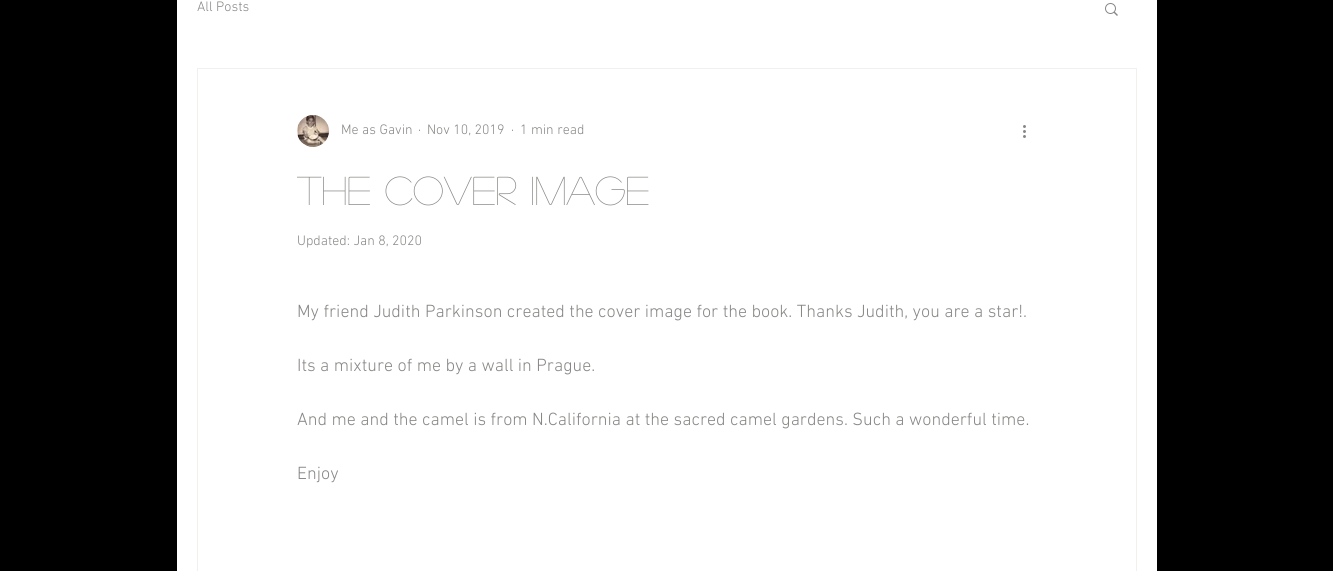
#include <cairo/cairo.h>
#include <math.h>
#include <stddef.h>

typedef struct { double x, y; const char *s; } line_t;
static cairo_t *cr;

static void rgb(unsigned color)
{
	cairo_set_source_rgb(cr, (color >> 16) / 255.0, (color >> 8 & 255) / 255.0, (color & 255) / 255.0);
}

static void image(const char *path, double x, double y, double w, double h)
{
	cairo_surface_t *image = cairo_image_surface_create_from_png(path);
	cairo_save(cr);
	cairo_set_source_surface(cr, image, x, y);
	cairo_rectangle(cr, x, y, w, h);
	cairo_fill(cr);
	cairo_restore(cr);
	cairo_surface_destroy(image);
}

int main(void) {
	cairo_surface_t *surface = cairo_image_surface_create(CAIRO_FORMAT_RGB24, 1333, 571);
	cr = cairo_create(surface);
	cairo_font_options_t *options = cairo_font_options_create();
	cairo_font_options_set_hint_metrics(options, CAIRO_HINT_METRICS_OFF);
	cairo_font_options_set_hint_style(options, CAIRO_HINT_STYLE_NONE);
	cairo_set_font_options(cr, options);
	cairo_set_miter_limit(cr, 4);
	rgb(0x000000);
	cairo_paint(cr);
	rgb(0xffffff);
	cairo_rectangle(cr, 177, 0, 980, 571);
	cairo_fill(cr);
	image("img/1.png", 1105, 3, 13, 13);
	cairo_rectangle(cr, 197.5, 68.5, 939, 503);
	rgb(0xf2efec);
	cairo_set_line_width(cr, 1);
	cairo_stroke(cr);
	image("img/2.png", 297, 115, 32, 32);
	image("img/3.png", 1023, 125, 3, 13);
	cairo_select_font_face(cr, "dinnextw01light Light", CAIRO_FONT_SLANT_NORMAL, CAIRO_FONT_WEIGHT_NORMAL);
	cairo_set_font_size(cr, 14);
	rgb(0x888785);
	{
		static const line_t items[] = {
			{197, 11, "All Posts"},
			{341, 134, "Me as Gavin"},
			{418, 134, "·"},
			{427, 134, "Nov 10, 2019"},
			{511, 134, "·"},
			{520, 134, "1 min read"},
		};
		for (size_t i = 0; i < sizeof items / sizeof *items; i++) {
			cairo_move_to(cr, items[i].x, items[i].y);
			cairo_show_text(cr, items[i].s);
		}
	}
	cairo_select_font_face(cr, "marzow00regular", CAIRO_FONT_SLANT_NORMAL, CAIRO_FONT_WEIGHT_NORMAL);
	cairo_set_font_size(cr, 40);
	cairo_move_to(cr, 297, 205);
	cairo_show_text(cr, "The cover image");
	cairo_select_font_face(cr, "dinnextw01light Light", CAIRO_FONT_SLANT_NORMAL, CAIRO_FONT_WEIGHT_NORMAL);
	cairo_set_font_size(cr, 14);
	cairo_move_to(cr, 297, 245);
	cairo_show_text(cr, "Updated: Jan 8, 2020");
	cairo_set_font_size(cr, 18);
	{
		static const line_t items[] = {
			{297, 317, "My friend Judith Parkinson created the cover image for the book. Thanks Judith, you are a star!."},
			{297, 371, "Its a mixture of me by a wall in Prague."},
			{297, 425, "And me and the camel is from N.California at the sacred camel gardens. Such a wonderful time."},
			{297, 479, "Enjoy"},
		};
		for (size_t i = 0; i < sizeof items / sizeof *items; i++) {
			cairo_move_to(cr, items[i].x, items[i].y);
			cairo_show_text(cr, items[i].s);
		}
	}
	cairo_surface_write_to_png(surface, "page.png");
	cairo_font_options_destroy(options);
	cairo_destroy(cr);
	cairo_surface_destroy(surface);
	return 0;
}
